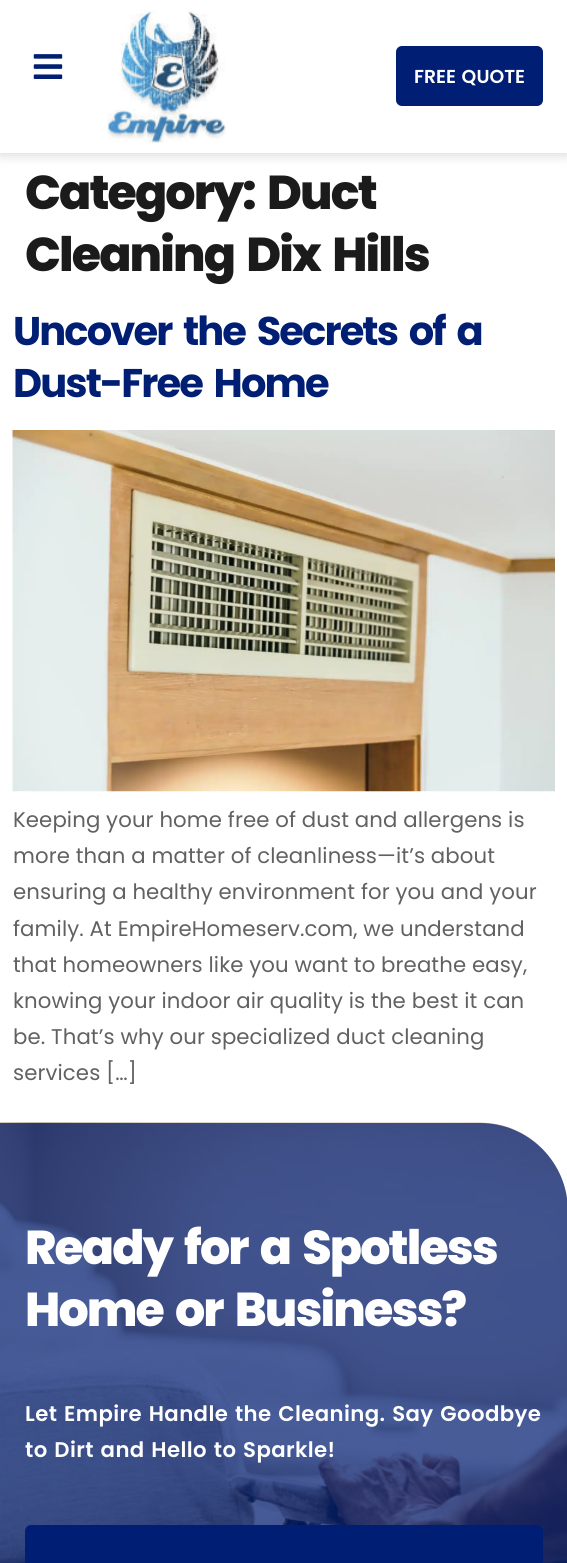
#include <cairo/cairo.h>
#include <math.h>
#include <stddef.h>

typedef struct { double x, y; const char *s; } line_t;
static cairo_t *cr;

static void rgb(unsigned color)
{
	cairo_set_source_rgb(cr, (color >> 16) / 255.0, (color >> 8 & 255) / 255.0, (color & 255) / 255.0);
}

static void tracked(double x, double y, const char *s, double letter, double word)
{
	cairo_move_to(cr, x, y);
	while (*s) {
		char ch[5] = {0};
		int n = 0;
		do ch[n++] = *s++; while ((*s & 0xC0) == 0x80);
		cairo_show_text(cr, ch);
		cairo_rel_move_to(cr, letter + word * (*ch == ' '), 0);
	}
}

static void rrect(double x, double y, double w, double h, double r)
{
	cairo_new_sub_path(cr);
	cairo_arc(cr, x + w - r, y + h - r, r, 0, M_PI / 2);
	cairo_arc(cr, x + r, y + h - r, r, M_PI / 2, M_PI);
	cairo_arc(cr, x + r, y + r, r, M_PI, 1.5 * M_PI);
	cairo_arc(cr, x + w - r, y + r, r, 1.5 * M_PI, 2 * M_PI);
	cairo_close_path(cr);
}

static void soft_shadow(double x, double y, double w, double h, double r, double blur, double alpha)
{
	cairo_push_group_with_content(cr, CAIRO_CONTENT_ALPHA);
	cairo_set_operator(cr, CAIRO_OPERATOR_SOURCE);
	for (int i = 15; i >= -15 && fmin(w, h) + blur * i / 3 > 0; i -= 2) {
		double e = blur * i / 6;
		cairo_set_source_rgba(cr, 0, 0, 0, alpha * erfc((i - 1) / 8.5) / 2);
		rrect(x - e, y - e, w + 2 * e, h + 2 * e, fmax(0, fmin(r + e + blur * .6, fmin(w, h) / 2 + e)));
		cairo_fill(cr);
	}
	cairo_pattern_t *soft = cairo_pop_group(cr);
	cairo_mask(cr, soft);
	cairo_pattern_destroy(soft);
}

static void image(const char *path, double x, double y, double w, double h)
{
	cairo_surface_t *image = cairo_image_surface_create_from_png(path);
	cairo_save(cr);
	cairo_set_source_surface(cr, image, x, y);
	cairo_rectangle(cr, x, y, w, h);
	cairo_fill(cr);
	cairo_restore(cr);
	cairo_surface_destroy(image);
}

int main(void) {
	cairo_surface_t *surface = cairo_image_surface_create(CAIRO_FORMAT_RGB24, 567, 1563);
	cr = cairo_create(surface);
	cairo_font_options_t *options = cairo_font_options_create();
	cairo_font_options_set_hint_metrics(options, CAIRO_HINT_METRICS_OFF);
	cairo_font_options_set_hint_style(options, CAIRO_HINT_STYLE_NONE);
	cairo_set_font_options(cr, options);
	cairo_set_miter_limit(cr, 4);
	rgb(0xffffff);
	cairo_paint(cr);
	rgb(0x000000);
	soft_shadow(0, 3, 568, 152, 0, 6, 0.15);
	rgb(0xffffff);
	cairo_rectangle(cr, 0, 0, 567, 153);
	cairo_fill(cr);
	image("img/1.png", 33, 54, 30, 25);
	image("img/2.png", 107, 10, 119, 133);
	rgb(0x001e73);
	rrect(397.5, 47.5, 144, 57, 4.5);
	cairo_fill_preserve(cr);
	cairo_set_line_width(cr, 3);
	cairo_stroke(cr);
	image("img/3.png", 12, 430, 543, 362);
	image("img/4.png", 0, 1122, 567, 441);
	cairo_set_source_rgba(cr, 0, 0.118, 0.451, 0.7);
	cairo_new_path(cr);
	cairo_move_to(cr, 0, 1123);
	cairo_line_to(cr, 480, 1123);
	cairo_curve_to(cr, 528.5, 1123, 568, 1162.5, 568, 1211);
	cairo_line_to(cr, 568, 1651);
	cairo_line_to(cr, 0, 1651);
	cairo_close_path(cr);
	cairo_fill(cr);
	rgb(0x001e73);
	rrect(27, 1527, 514, 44, 4);
	cairo_fill_preserve(cr);
	cairo_set_line_width(cr, 4);
	cairo_stroke(cr);
	cairo_select_font_face(cr, "Poppins SemiBold", CAIRO_FONT_SLANT_NORMAL, CAIRO_FONT_WEIGHT_NORMAL);
	cairo_set_font_size(cr, 18.75);
	rgb(0xffffff);
	tracked(414, 83, "FREE QUOTE", 0, 1.25);
	cairo_select_font_face(cr, "Poppins ExtraBold", CAIRO_FONT_SLANT_NORMAL, CAIRO_FONT_WEIGHT_NORMAL);
	cairo_set_font_size(cr, 47.5);
	rgb(0x1b1b1b);
	tracked(25, 209, "Category:", -1.9, 0);
	tracked(267, 209, "Duct", -1.9, 0);
	tracked(25, 271, "Cleaning Dix Hills", -1.9, 5);
	cairo_select_font_face(cr, "Poppins", CAIRO_FONT_SLANT_NORMAL, CAIRO_FONT_WEIGHT_BOLD);
	cairo_set_font_size(cr, 40);
	rgb(0x001e73);
	tracked(13, 345, "Uncover the Secrets of a", -1.9, 5);
	tracked(13, 397, "Dust-Free Home", -1.9, 5);
	cairo_select_font_face(cr, "Poppins", CAIRO_FONT_SLANT_NORMAL, CAIRO_FONT_WEIGHT_NORMAL);
	cairo_set_font_size(cr, 21.25);
	rgb(0x616161);
	{
		static const line_t items[] = {
			{13, 827, "Keeping your home free of dust and allergens is"},
			{13, 863, "more than a matter of cleanliness—it’s about"},
			{13, 899, "ensuring a healthy environment for you and your"},
			{13, 936, "family. At EmpireHomeserv.com, we understand"},
			{13, 972, "that homeowners like you want to breathe easy,"},
			{13, 1008, "knowing your indoor air quality is the best it can"},
			{13, 1044, "be. That’s why our specialized duct cleaning"},
			{13, 1080, "services […]"},
		};
		for (size_t i = 0; i < sizeof items / sizeof *items; i++) {
			tracked(items[i].x, items[i].y, items[i].s, 0.1, 0);
		}
	}
	cairo_select_font_face(cr, "Poppins ExtraBold", CAIRO_FONT_SLANT_NORMAL, CAIRO_FONT_WEIGHT_NORMAL);
	cairo_set_font_size(cr, 47.5);
	rgb(0xffffff);
	tracked(25, 1264, "Ready for a Spotless", -1.9, 5);
	tracked(25, 1326, "Home or Business?", -1.9, 5);
	cairo_select_font_face(cr, "Poppins SemiBold", CAIRO_FONT_SLANT_NORMAL, CAIRO_FONT_WEIGHT_NORMAL);
	cairo_set_font_size(cr, 21.25);
	tracked(25, 1421, "Let Empire Handle the Cleaning. Say Goodbye", 0.4, 1.25);
	tracked(25, 1457, "to Dirt and Hello to Sparkle!", 0.4, 1.25);
	cairo_surface_write_to_png(surface, "page.png");
	cairo_font_options_destroy(options);
	cairo_destroy(cr);
	cairo_surface_destroy(surface);
	return 0;
}
